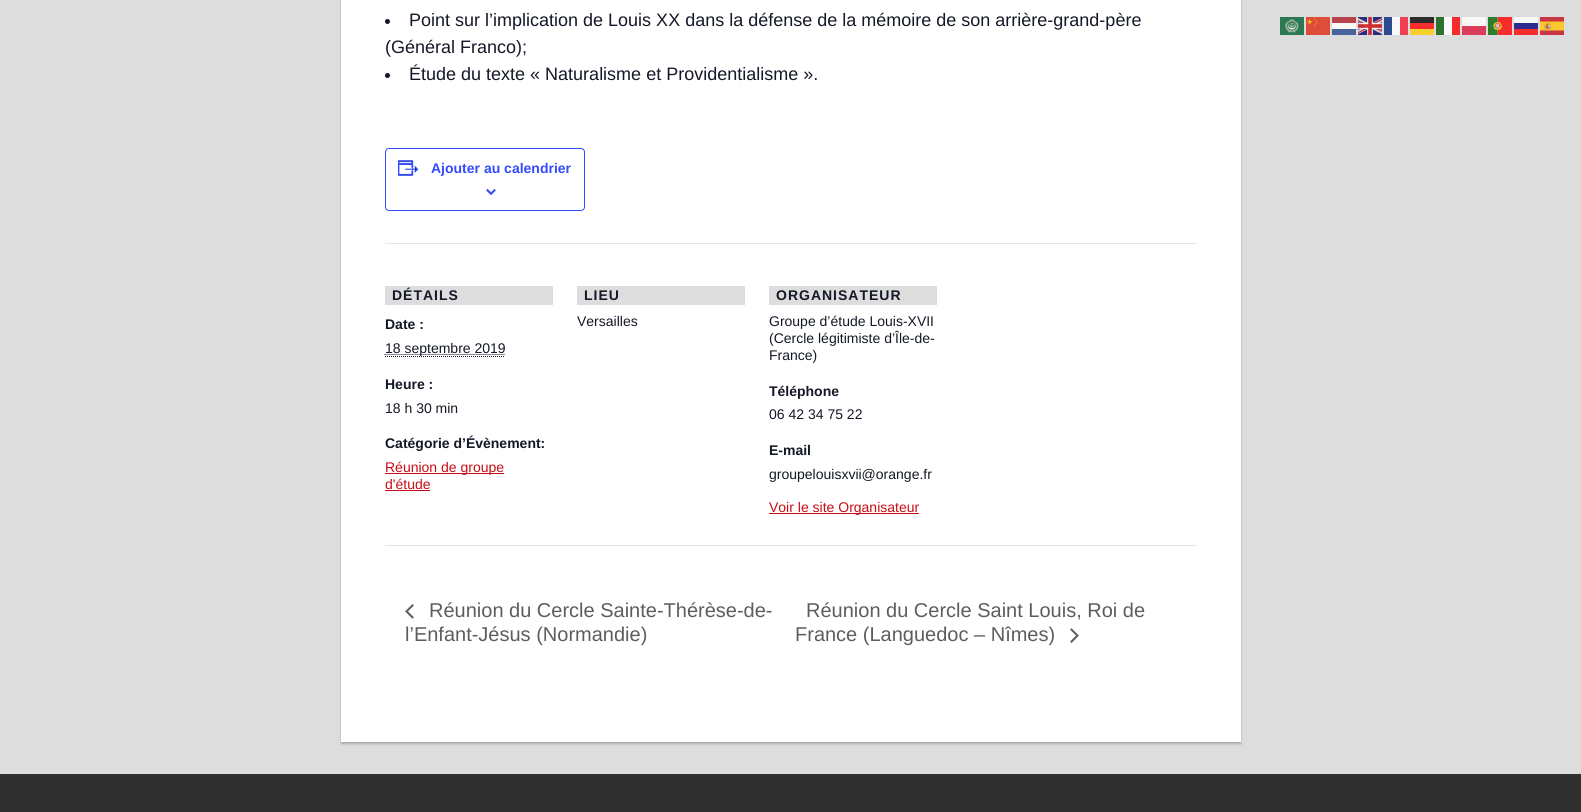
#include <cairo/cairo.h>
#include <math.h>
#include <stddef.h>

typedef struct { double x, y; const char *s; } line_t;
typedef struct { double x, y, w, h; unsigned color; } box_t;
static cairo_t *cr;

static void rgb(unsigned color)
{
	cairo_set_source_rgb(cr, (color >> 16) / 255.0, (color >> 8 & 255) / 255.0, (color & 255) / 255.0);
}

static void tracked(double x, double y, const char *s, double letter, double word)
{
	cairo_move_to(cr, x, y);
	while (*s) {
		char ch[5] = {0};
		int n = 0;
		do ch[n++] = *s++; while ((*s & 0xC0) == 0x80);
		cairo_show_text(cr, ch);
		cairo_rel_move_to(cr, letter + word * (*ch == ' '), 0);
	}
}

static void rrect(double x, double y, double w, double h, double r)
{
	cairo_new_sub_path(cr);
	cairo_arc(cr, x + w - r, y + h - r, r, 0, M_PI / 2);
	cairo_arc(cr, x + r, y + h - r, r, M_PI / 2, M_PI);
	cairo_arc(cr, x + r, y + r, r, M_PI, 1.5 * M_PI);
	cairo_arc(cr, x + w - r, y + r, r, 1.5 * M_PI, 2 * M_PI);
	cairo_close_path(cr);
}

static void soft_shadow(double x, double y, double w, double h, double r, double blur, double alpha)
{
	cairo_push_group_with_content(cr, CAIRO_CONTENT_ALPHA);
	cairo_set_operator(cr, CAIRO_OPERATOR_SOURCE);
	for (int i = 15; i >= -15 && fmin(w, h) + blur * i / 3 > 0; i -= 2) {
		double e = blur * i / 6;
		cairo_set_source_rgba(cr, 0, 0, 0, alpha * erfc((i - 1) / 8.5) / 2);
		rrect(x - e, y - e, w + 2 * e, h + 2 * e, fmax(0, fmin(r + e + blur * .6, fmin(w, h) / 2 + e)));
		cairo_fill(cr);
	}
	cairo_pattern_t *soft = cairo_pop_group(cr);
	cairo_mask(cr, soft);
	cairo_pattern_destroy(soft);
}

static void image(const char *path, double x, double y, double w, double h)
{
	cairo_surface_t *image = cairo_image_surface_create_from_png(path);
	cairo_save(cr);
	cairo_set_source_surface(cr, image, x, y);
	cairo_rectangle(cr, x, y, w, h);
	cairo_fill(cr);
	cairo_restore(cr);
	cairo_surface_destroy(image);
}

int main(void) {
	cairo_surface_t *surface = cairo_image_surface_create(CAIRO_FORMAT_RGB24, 1581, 812);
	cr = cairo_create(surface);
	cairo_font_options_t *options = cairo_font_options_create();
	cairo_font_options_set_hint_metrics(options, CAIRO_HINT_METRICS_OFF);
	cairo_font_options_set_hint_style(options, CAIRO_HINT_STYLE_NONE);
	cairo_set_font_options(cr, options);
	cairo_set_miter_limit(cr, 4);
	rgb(0xdddddd);
	cairo_paint(cr);
	rgb(0xaaaaaa);
	soft_shadow(341, -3, 900, 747, 0, 1, 1);
	rgb(0xffffff);
	cairo_rectangle(cr, 341, 0, 900, 742);
	cairo_fill(cr);
	rgb(0x141827);
	cairo_arc(cr, 387.5, 21.5, 2.5, 0, 2 * M_PI);
	cairo_fill(cr);
	cairo_arc(cr, 387.5, 75.5, 2.5, 0, 2 * M_PI);
	cairo_fill(cr);
	rrect(385.5, 148.5, 199, 62, 3.5);
	rgb(0x334aff);
	cairo_set_line_width(cr, 1);
	cairo_stroke(cr);
	image("img/1.png", 398, 160, 21, 16);
	image("img/2.png", 486, 189, 10, 6);
	rgb(0xe4e4e4);
	cairo_rectangle(cr, 385, 243, 812, 1);
	cairo_fill(cr);
	rgb(0xdddddd);
	cairo_rectangle(cr, 385, 286, 168, 19);
	cairo_fill(cr);
	cairo_new_path(cr);
	cairo_move_to(cr, 385, 356.5);
	cairo_line_to(cr, 505, 356.5);
	rgb(0x141827);
	cairo_set_dash(cr, (double[]){1, 1}, 2, 0);
	cairo_stroke(cr);
	cairo_new_path(cr);
	cairo_move_to(cr, 384.5, 354.5);
	cairo_line_to(cr, 505, 354.5);
	cairo_stroke(cr);
	{
		static const box_t items[] = {
			{385, 473, 119, 1, 0xc70d17},
			{385, 490, 45, 1, 0xc70d17},
			{577, 286, 168, 19, 0xdddddd},
			{769, 286, 168, 19, 0xdddddd},
			{769, 513, 150, 1, 0xc70d17},
			{385, 545, 812, 1, 0xe4e4e4},
		};
		for (size_t i = 0; i < sizeof items / sizeof *items; i++) {
			rgb(items[i].color);
			cairo_rectangle(cr, items[i].x, items[i].y, items[i].w, items[i].h);
			cairo_fill(cr);
		}
	}
	image("img/3.png", 405, 604, 9, 15);
	image("img/4.png", 1070, 628, 9, 15);
	rgb(0x303030);
	cairo_rectangle(cr, 0, 774, 1581, 38);
	cairo_fill(cr);
	image("img/5.png", 1280, 17, 24, 18);
	image("img/6.png", 1306, 17, 24, 18);
	rgb(0xb7434c);
	cairo_rectangle(cr, 1332, 17, 24, 6);
	cairo_fill(cr);
	image("img/7.png", 1358, 17, 24, 18);
	{
		static const box_t items[] = {
			{1384, 17, 8, 18, 0x2c4b92},
			{1392, 17, 8, 18, 0xf8f8f8},
			{1400, 17, 8, 18, 0xef3f53},
			{1410, 17, 24, 6, 0x2c2c2c},
			{1436, 17, 8, 18, 0x2c722c},
			{1444, 17, 8, 18, 0xf8f8f8},
			{1452, 17, 8, 18, 0xf62c2c},
			{1462, 17, 24, 9, 0xf8f8f8},
		};
		for (size_t i = 0; i < sizeof items / sizeof *items; i++) {
			rgb(items[i].color);
			cairo_rectangle(cr, items[i].x, items[i].y, items[i].w, items[i].h);
			cairo_fill(cr);
		}
	}
	image("img/8.png", 1488, 17, 24, 18);
	cairo_rectangle(cr, 1514, 17, 24, 6);
	cairo_fill(cr);
	image("img/9.png", 1540, 17, 24, 18);
	{
		static const box_t items[] = {
			{1332, 23, 24, 6, 0xf8f8f8},
			{1410, 23, 24, 6, 0xf82c2c},
			{1462, 26, 24, 9, 0xdc3c5c},
			{1514, 23, 24, 6, 0x2d2d91},
			{1332, 29, 24, 6, 0x47649b},
			{1410, 29, 24, 6, 0xf8cf2c},
			{1514, 29, 24, 6, 0xf72d2d},
		};
		for (size_t i = 0; i < sizeof items / sizeof *items; i++) {
			rgb(items[i].color);
			cairo_rectangle(cr, items[i].x, items[i].y, items[i].w, items[i].h);
			cairo_fill(cr);
		}
	}
	cairo_select_font_face(cr, "Liberation Sans", CAIRO_FONT_SLANT_NORMAL, CAIRO_FONT_WEIGHT_NORMAL);
	cairo_set_font_size(cr, 18);
	rgb(0x141827);
	{
		static const line_t items[] = {
			{409, 26, "Point sur l’implication de Louis XX dans la défense de la mémoire de son arrière-grand-père"},
			{385, 53, "(Général Franco);"},
			{409, 80, "Étude du texte « Naturalisme et Providentialisme »."},
		};
		for (size_t i = 0; i < sizeof items / sizeof *items; i++) {
			cairo_move_to(cr, items[i].x, items[i].y);
			cairo_show_text(cr, items[i].s);
		}
	}
	cairo_select_font_face(cr, "Liberation Sans", CAIRO_FONT_SLANT_NORMAL, CAIRO_FONT_WEIGHT_BOLD);
	cairo_set_font_size(cr, 14);
	rgb(0x334aff);
	cairo_move_to(cr, 431, 173);
	cairo_show_text(cr, "Ajouter au calendrier");
	rgb(0x141827);
	tracked(392, 300, "DÉTAILS", 1, 0);
	cairo_move_to(cr, 385, 329);
	cairo_show_text(cr, "Date :");
	cairo_select_font_face(cr, "Liberation Sans", CAIRO_FONT_SLANT_NORMAL, CAIRO_FONT_WEIGHT_NORMAL);
	cairo_move_to(cr, 385, 353);
	cairo_show_text(cr, "18 septembre 2019");
	cairo_select_font_face(cr, "Liberation Sans", CAIRO_FONT_SLANT_NORMAL, CAIRO_FONT_WEIGHT_BOLD);
	cairo_move_to(cr, 385, 389);
	cairo_show_text(cr, "Heure :");
	cairo_select_font_face(cr, "Liberation Sans", CAIRO_FONT_SLANT_NORMAL, CAIRO_FONT_WEIGHT_NORMAL);
	cairo_move_to(cr, 385, 413);
	cairo_show_text(cr, "18 h 30 min");
	cairo_select_font_face(cr, "Liberation Sans", CAIRO_FONT_SLANT_NORMAL, CAIRO_FONT_WEIGHT_BOLD);
	cairo_move_to(cr, 385, 448);
	cairo_show_text(cr, "Catégorie d’Évènement:");
	cairo_select_font_face(cr, "Liberation Sans", CAIRO_FONT_SLANT_NORMAL, CAIRO_FONT_WEIGHT_NORMAL);
	rgb(0xc70d17);
	cairo_move_to(cr, 385, 472);
	cairo_show_text(cr, "Réunion de groupe");
	cairo_move_to(cr, 385, 489);
	cairo_show_text(cr, "d'étude");
	cairo_select_font_face(cr, "Liberation Sans", CAIRO_FONT_SLANT_NORMAL, CAIRO_FONT_WEIGHT_BOLD);
	rgb(0x141827);
	tracked(584, 300, "LIEU", 1, 0);
	cairo_select_font_face(cr, "Liberation Sans", CAIRO_FONT_SLANT_NORMAL, CAIRO_FONT_WEIGHT_NORMAL);
	cairo_move_to(cr, 577, 326);
	cairo_show_text(cr, "Versailles");
	cairo_select_font_face(cr, "Liberation Sans", CAIRO_FONT_SLANT_NORMAL, CAIRO_FONT_WEIGHT_BOLD);
	tracked(776, 300, "ORGANISATEUR", 1, 0);
	cairo_select_font_face(cr, "Liberation Sans", CAIRO_FONT_SLANT_NORMAL, CAIRO_FONT_WEIGHT_NORMAL);
	{
		static const line_t items[] = {
			{769, 326, "Groupe d’étude Louis-XVII"},
			{769, 343, "(Cercle légitimiste d’Île-de-"},
			{769, 360, "France)"},
		};
		for (size_t i = 0; i < sizeof items / sizeof *items; i++) {
			cairo_move_to(cr, items[i].x, items[i].y);
			cairo_show_text(cr, items[i].s);
		}
	}
	cairo_select_font_face(cr, "Liberation Sans", CAIRO_FONT_SLANT_NORMAL, CAIRO_FONT_WEIGHT_BOLD);
	cairo_move_to(cr, 769, 396);
	cairo_show_text(cr, "Téléphone");
	cairo_select_font_face(cr, "Liberation Sans", CAIRO_FONT_SLANT_NORMAL, CAIRO_FONT_WEIGHT_NORMAL);
	cairo_move_to(cr, 769, 419);
	cairo_show_text(cr, "06 42 34 75 22");
	cairo_select_font_face(cr, "Liberation Sans", CAIRO_FONT_SLANT_NORMAL, CAIRO_FONT_WEIGHT_BOLD);
	cairo_move_to(cr, 769, 455);
	cairo_show_text(cr, "E-mail");
	cairo_select_font_face(cr, "Liberation Sans", CAIRO_FONT_SLANT_NORMAL, CAIRO_FONT_WEIGHT_NORMAL);
	cairo_move_to(cr, 769, 479);
	cairo_show_text(cr, "groupelouisxvii@orange.fr");
	rgb(0xc70d17);
	cairo_move_to(cr, 769, 512);
	cairo_show_text(cr, "Voir le site Organisateur");
	cairo_set_font_size(cr, 20);
	rgb(0x5d5d5d);
	{
		static const line_t items[] = {
			{429, 617, "Réunion du Cercle Sainte-Thérèse-de-"},
			{405, 641, "l’Enfant-Jésus (Normandie)"},
			{806, 617, "Réunion du Cercle Saint Louis, Roi de"},
			{795, 641, "France (Languedoc – Nîmes)"},
		};
		for (size_t i = 0; i < sizeof items / sizeof *items; i++) {
			cairo_move_to(cr, items[i].x, items[i].y);
			cairo_show_text(cr, items[i].s);
		}
	}
	cairo_surface_write_to_png(surface, "page.png");
	cairo_font_options_destroy(options);
	cairo_destroy(cr);
	cairo_surface_destroy(surface);
	return 0;
}
